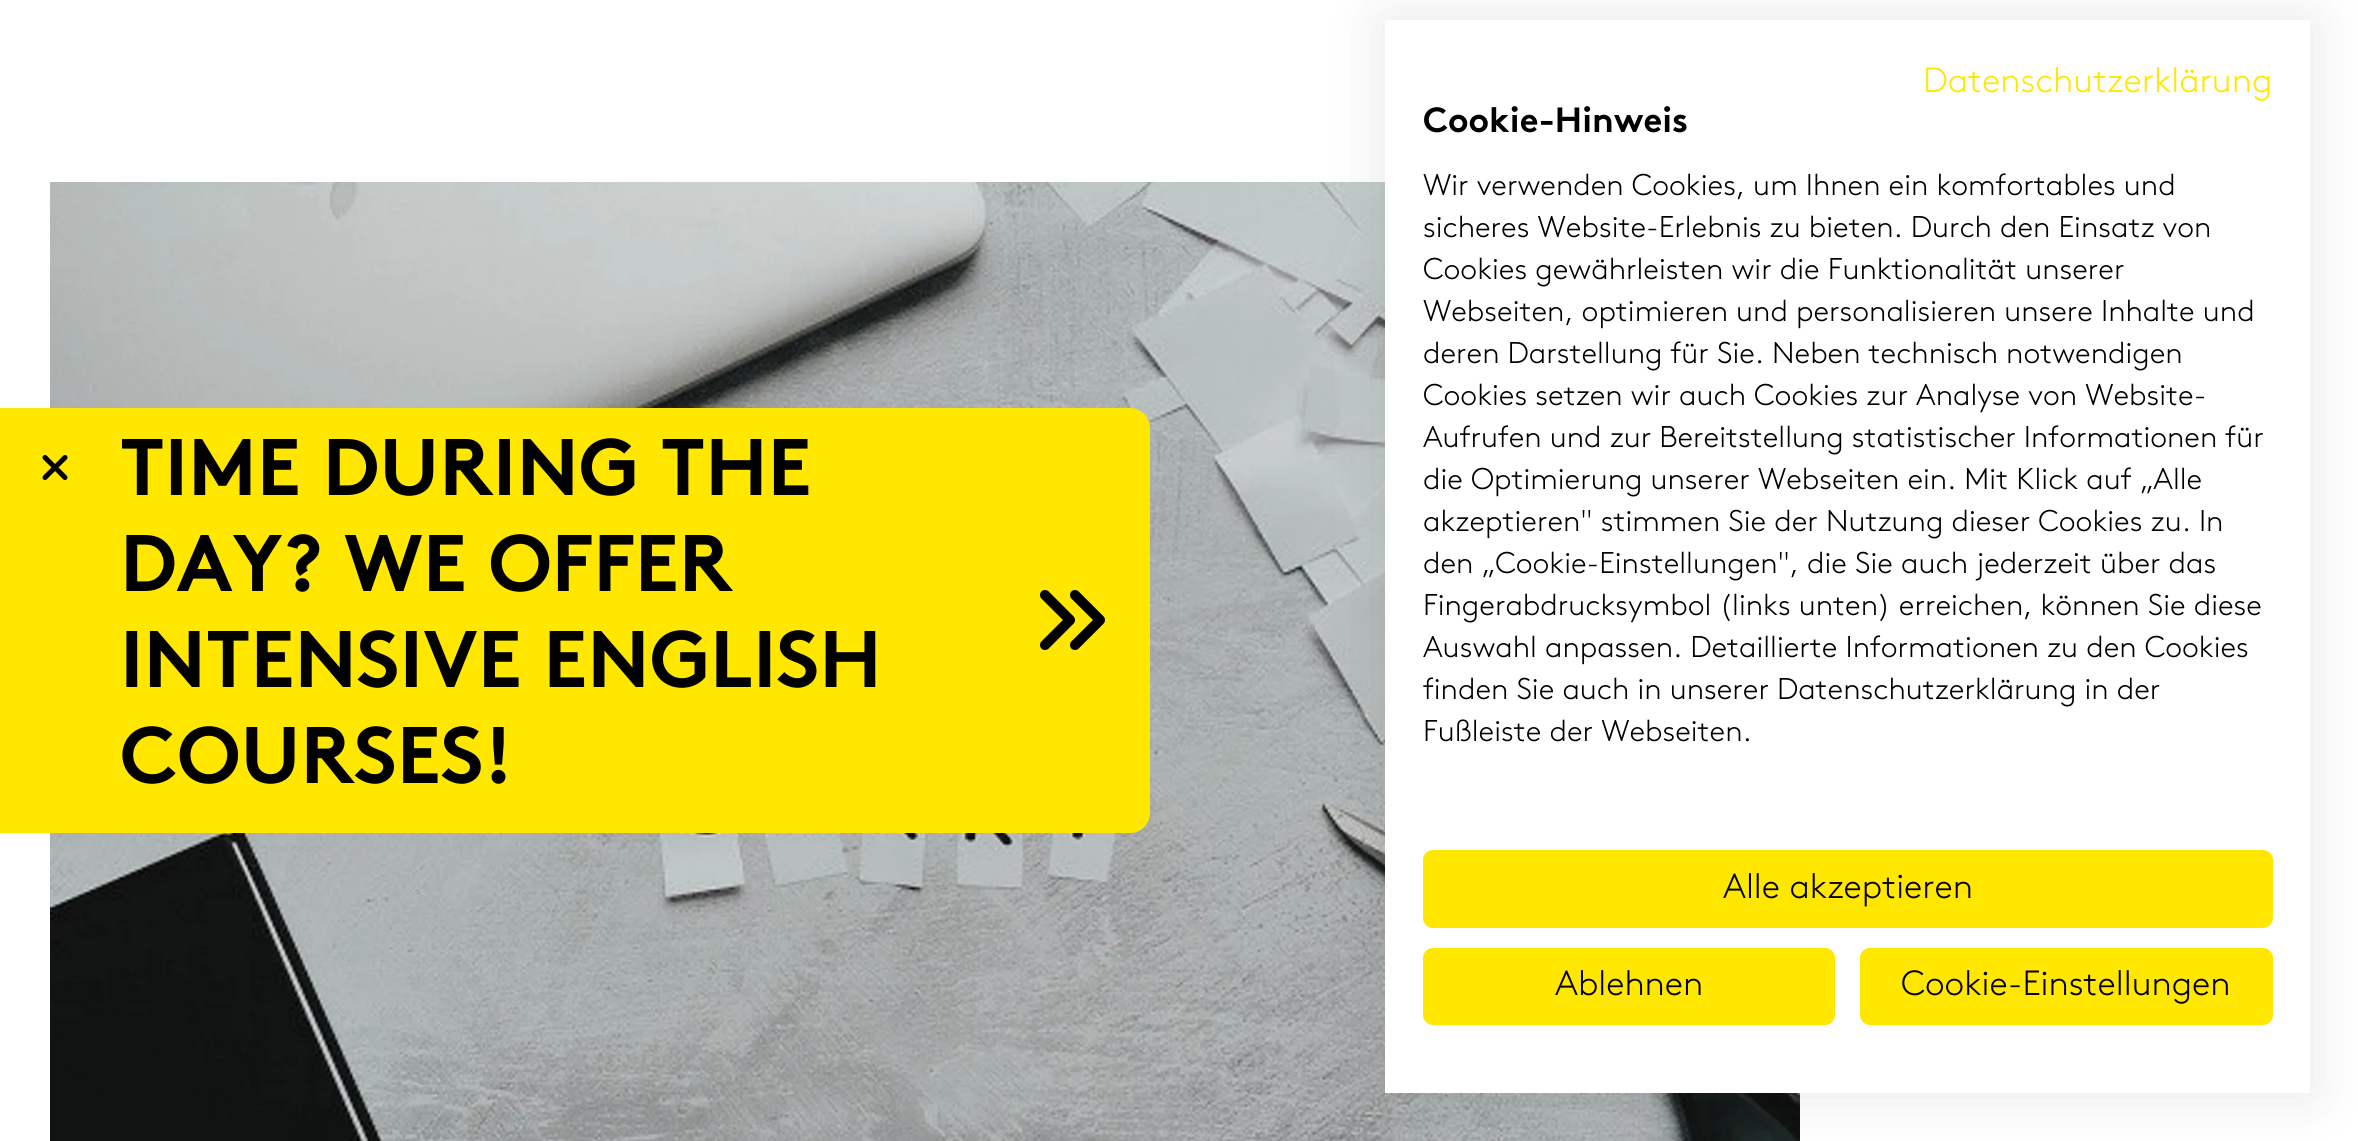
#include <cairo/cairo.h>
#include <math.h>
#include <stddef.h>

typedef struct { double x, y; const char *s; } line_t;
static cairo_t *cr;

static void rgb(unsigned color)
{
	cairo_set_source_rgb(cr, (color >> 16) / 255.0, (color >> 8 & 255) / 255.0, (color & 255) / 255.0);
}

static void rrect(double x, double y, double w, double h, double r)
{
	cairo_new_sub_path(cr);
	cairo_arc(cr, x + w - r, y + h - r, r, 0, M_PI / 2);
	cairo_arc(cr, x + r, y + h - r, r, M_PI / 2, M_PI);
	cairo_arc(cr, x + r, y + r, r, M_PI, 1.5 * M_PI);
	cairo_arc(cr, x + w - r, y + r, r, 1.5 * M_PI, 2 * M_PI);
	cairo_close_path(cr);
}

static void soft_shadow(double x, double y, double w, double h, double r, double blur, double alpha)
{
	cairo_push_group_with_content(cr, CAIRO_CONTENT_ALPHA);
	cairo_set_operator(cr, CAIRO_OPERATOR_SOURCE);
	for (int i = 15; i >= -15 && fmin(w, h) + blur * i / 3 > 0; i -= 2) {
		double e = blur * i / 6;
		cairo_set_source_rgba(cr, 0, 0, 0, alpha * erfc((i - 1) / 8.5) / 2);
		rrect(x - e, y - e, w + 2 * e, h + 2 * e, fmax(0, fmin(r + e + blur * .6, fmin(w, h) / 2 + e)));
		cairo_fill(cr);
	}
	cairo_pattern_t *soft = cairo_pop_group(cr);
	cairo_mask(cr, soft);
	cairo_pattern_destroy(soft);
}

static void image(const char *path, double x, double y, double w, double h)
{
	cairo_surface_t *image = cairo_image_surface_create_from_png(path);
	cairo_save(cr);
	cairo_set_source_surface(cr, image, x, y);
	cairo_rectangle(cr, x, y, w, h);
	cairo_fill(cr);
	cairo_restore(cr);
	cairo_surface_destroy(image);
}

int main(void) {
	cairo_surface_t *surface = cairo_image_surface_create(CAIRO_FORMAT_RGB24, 2358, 1141);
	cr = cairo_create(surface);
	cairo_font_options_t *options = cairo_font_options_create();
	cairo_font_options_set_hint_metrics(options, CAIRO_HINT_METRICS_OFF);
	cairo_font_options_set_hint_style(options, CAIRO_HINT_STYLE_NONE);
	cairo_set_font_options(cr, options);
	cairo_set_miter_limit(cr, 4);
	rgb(0xffffff);
	cairo_paint(cr);
	image("img/1.png", 50, 182, 1750, 959);
	rgb(0x000000);
	soft_shadow(1385, 20, 925, 1073, 0, 30, 0.1);
	rgb(0xffffff);
	cairo_rectangle(cr, 1385, 20, 925, 1073);
	cairo_fill(cr);
	rgb(0xffe700);
	rrect(1424.5, 851.5, 847, 75, 8.5);
	cairo_fill_preserve(cr);
	cairo_set_line_width(cr, 3);
	cairo_stroke(cr);
	rrect(1424.5, 949.5, 409, 74, 8.5);
	cairo_fill_preserve(cr);
	cairo_stroke(cr);
	rrect(1861.5, 949.5, 410, 74, 8.5);
	cairo_fill_preserve(cr);
	cairo_stroke(cr);
	cairo_new_path(cr);
	cairo_move_to(cr, 0, 408);
	cairo_line_to(cr, 1130, 408);
	cairo_curve_to(cr, 1141, 408, 1150, 417, 1150, 428);
	cairo_line_to(cr, 1150, 813);
	cairo_curve_to(cr, 1150, 824, 1141, 833, 1130, 833);
	cairo_line_to(cr, 0, 833);
	cairo_close_path(cr);
	cairo_fill(cr);
	image("img/2.png", 42, 455, 26, 25);
	image("img/3.png", 1040, 590, 65, 60);
	cairo_select_font_face(cr, "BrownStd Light", CAIRO_FONT_SLANT_NORMAL, CAIRO_FONT_WEIGHT_NORMAL);
	cairo_set_font_size(cr, 35);
	cairo_move_to(cr, 1923, 92);
	cairo_show_text(cr, "Datenschutzerklärung");
	cairo_select_font_face(cr, "BrownStd", CAIRO_FONT_SLANT_NORMAL, CAIRO_FONT_WEIGHT_BOLD);
	rgb(0x000000);
	cairo_move_to(cr, 1423, 132);
	cairo_show_text(cr, "Cookie-Hinweis");
	cairo_select_font_face(cr, "BrownStd Light", CAIRO_FONT_SLANT_NORMAL, CAIRO_FONT_WEIGHT_NORMAL);
	cairo_set_font_size(cr, 30);
	{
		static const line_t items[] = {
			{1423, 195, "Wir verwenden Cookies, um Ihnen ein komfortables und"},
			{1423, 237, "sicheres Website-Erlebnis zu bieten. Durch den Einsatz von"},
			{1423, 279, "Cookies gewährleisten wir die Funktionalität unserer"},
			{1423, 321, "Webseiten, optimieren und personalisieren unsere Inhalte und"},
			{1423, 363, "deren Darstellung für Sie. Neben technisch notwendigen"},
			{1423, 405, "Cookies setzen wir auch Cookies zur Analyse von Website-"},
			{1423, 447, "Aufrufen und zur Bereitstellung statistischer Informationen für"},
			{1423, 489, "die Optimierung unserer Webseiten ein. Mit Klick auf „Alle"},
			{1423, 531, "akzeptieren\" stimmen Sie der Nutzung dieser Cookies zu. In"},
			{1423, 573, "den „Cookie-Einstellungen\", die Sie auch jederzeit über das"},
			{1423, 615, "Fingerabdrucksymbol (links unten) erreichen, können Sie diese"},
			{1423, 657, "Auswahl anpassen. Detaillierte Informationen zu den Cookies"},
			{1423, 699, "finden Sie auch in unserer Datenschutzerklärung in der"},
			{1423, 741, "Fußleiste der Webseiten."},
		};
		for (size_t i = 0; i < sizeof items / sizeof *items; i++) {
			cairo_move_to(cr, items[i].x, items[i].y);
			cairo_show_text(cr, items[i].s);
		}
	}
	cairo_set_font_size(cr, 35);
	{
		static const line_t items[] = {
			{1723, 898, "Alle akzeptieren"},
			{1555, 995, "Ablehnen"},
			{1901, 995, "Cookie-Einstellungen"},
		};
		for (size_t i = 0; i < sizeof items / sizeof *items; i++) {
			cairo_move_to(cr, items[i].x, items[i].y);
			cairo_show_text(cr, items[i].s);
		}
	}
	cairo_select_font_face(cr, "BrownStd", CAIRO_FONT_SLANT_NORMAL, CAIRO_FONT_WEIGHT_BOLD);
	cairo_set_font_size(cr, 80);
	{
		static const line_t items[] = {
			{120, 495, "TIME DURING THE"},
			{120, 591, "DAY? WE OFFER"},
			{120, 687, "INTENSIVE ENGLISH"},
			{120, 783, "COURSES!"},
		};
		for (size_t i = 0; i < sizeof items / sizeof *items; i++) {
			cairo_move_to(cr, items[i].x, items[i].y);
			cairo_show_text(cr, items[i].s);
		}
	}
	cairo_surface_write_to_png(surface, "page.png");
	cairo_font_options_destroy(options);
	cairo_destroy(cr);
	cairo_surface_destroy(surface);
	return 0;
}
